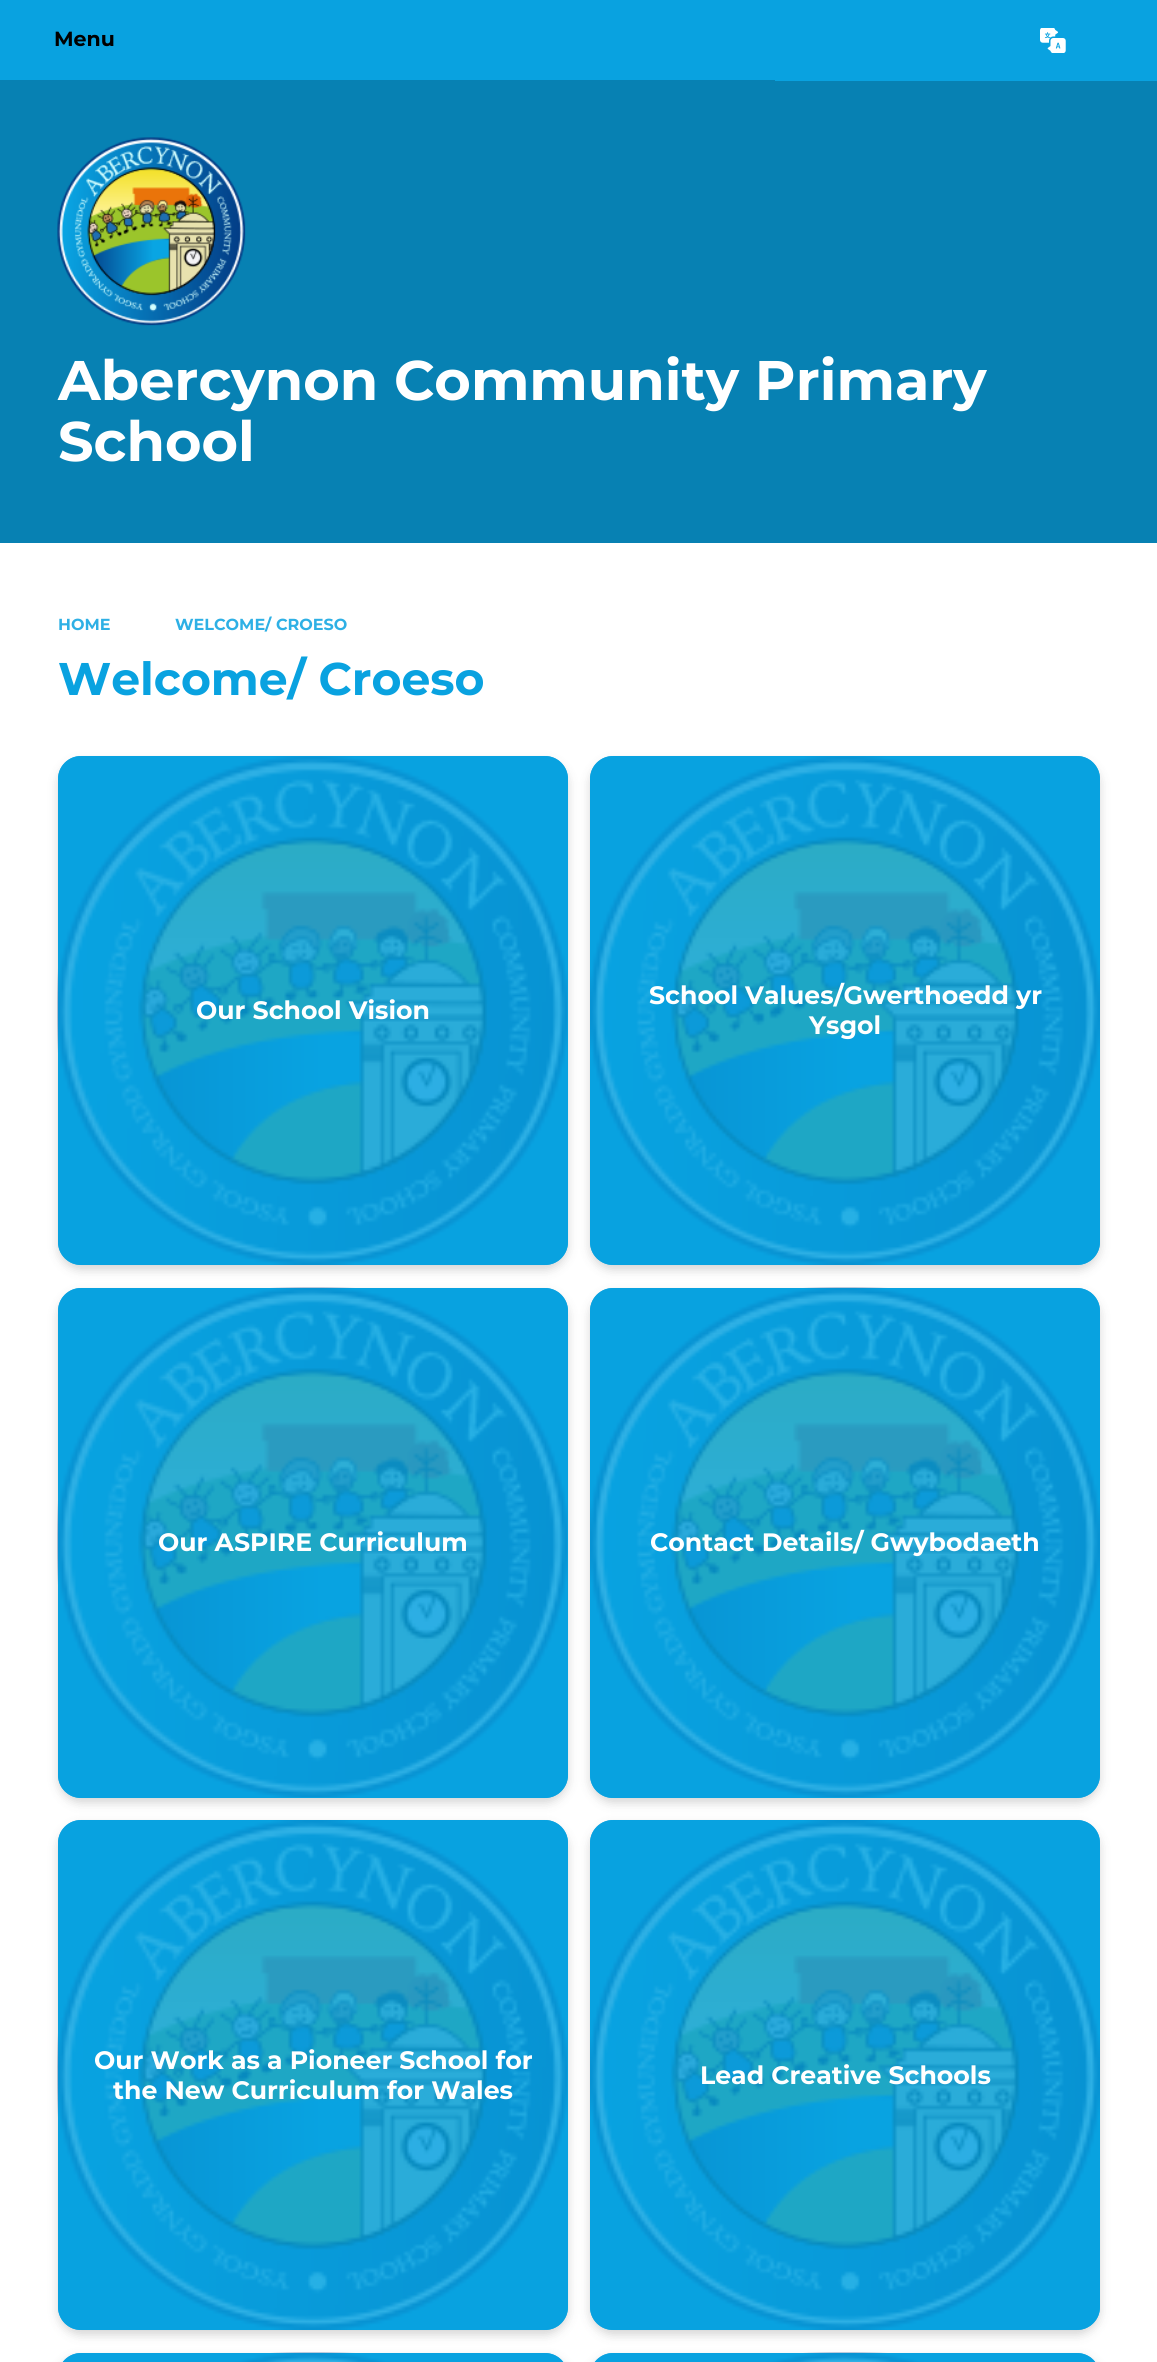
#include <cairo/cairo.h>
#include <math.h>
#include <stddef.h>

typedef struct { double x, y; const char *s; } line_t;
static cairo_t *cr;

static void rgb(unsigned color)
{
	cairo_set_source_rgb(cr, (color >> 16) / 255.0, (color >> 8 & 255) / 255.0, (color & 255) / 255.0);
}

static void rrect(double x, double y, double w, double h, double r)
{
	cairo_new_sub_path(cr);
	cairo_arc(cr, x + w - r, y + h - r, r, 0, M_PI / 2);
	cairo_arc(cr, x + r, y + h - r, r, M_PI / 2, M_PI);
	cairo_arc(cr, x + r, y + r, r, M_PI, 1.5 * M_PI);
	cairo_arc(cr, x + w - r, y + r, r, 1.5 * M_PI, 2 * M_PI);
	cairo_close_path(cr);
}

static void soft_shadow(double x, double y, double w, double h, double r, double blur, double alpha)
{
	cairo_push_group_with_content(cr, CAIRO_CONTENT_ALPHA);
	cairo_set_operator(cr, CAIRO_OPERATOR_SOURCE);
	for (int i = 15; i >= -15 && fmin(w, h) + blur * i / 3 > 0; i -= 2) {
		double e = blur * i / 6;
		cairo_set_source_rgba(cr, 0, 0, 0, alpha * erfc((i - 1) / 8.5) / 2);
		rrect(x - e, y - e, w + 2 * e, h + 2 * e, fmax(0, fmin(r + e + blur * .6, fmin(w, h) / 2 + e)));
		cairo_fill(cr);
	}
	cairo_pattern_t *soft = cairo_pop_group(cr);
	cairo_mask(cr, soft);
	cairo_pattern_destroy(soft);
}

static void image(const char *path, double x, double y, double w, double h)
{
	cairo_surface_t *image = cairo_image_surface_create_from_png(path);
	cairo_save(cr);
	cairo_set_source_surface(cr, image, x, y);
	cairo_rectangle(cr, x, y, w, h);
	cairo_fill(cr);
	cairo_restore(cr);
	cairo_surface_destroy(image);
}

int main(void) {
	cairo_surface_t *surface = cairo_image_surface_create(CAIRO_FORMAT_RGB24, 1157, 2362);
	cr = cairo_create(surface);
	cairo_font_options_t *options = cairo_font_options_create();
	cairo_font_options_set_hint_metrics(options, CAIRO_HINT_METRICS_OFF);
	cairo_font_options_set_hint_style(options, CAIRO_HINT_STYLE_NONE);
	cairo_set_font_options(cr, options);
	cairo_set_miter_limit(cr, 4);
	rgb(0xffffff);
	cairo_paint(cr);
	rgb(0x09a2e0);
	cairo_rectangle(cr, 0, 0, 1157, 80);
	cairo_fill(cr);
	image("img/1.png", 1040, 28, 26, 25);
	rgb(0x0781b3);
	cairo_rectangle(cr, 0, 80, 1157, 463);
	cairo_fill(cr);
	rgb(0x09a2e0);
	cairo_rectangle(cr, 775, 80, 382, 1);
	cairo_fill(cr);
	image("img/2.png", 57, 137, 189, 189);
	rgb(0x333333);
	soft_shadow(58, 761, 510, 509, 23, 5, 0.2);
	rgb(0x09a2e0);
	rrect(58, 756, 510, 509, 23);
	cairo_fill(cr);
	image("img/3.png", 57, 756, 511, 509);
	cairo_set_source_rgba(cr, 0.035, 0.635, 0.878, 0.85);
	rrect(58, 756, 510, 509, 23);
	cairo_fill(cr);
	rgb(0x333333);
	soft_shadow(590, 761, 510, 509, 23, 5, 0.2);
	rgb(0x09a2e0);
	rrect(590, 756, 510, 509, 23);
	cairo_fill(cr);
	image("img/4.png", 590, 756, 510, 509);
	cairo_set_source_rgba(cr, 0.035, 0.635, 0.878, 0.85);
	rrect(590, 756, 510, 509, 23);
	cairo_fill(cr);
	rgb(0x333333);
	soft_shadow(58, 1293, 510, 510, 23, 5, 0.2);
	rgb(0x09a2e0);
	rrect(58, 1288, 510, 510, 23);
	cairo_fill(cr);
	image("img/5.png", 57, 1287, 511, 511);
	cairo_set_source_rgba(cr, 0.035, 0.635, 0.878, 0.85);
	rrect(58, 1288, 510, 510, 23);
	cairo_fill(cr);
	rgb(0x333333);
	soft_shadow(590, 1293, 510, 510, 23, 5, 0.2);
	rgb(0x09a2e0);
	rrect(590, 1288, 510, 510, 23);
	cairo_fill(cr);
	image("img/6.png", 590, 1287, 510, 511);
	cairo_set_source_rgba(cr, 0.035, 0.635, 0.878, 0.85);
	rrect(590, 1288, 510, 510, 23);
	cairo_fill(cr);
	rgb(0x333333);
	soft_shadow(58, 1825, 510, 510, 23, 5, 0.2);
	rgb(0x09a2e0);
	rrect(58, 1820, 510, 510, 23);
	cairo_fill(cr);
	image("img/7.png", 57, 1820, 511, 510);
	cairo_set_source_rgba(cr, 0.035, 0.635, 0.878, 0.85);
	rrect(58, 1820, 510, 510, 23);
	cairo_fill(cr);
	rgb(0x333333);
	soft_shadow(590, 1825, 510, 510, 23, 5, 0.2);
	rgb(0x09a2e0);
	rrect(590, 1820, 510, 510, 23);
	cairo_fill(cr);
	image("img/8.png", 590, 1820, 510, 510);
	cairo_set_source_rgba(cr, 0.035, 0.635, 0.878, 0.85);
	rrect(590, 1820, 510, 510, 23);
	cairo_fill(cr);
	rgb(0x333333);
	soft_shadow(58, 2358, 510, 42, 23, 5, 0.2);
	rgb(0x09a2e0);
	rrect(58, 2353, 510, 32, 23);
	cairo_fill(cr);
	image("img/9.png", 233, 2352, 159, 10);
	cairo_set_source_rgba(cr, 0.035, 0.635, 0.878, 0.85);
	rrect(58, 2353, 510, 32, 23);
	cairo_fill(cr);
	rgb(0x333333);
	soft_shadow(590, 2358, 510, 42, 23, 5, 0.2);
	rgb(0x09a2e0);
	rrect(590, 2353, 510, 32, 23);
	cairo_fill(cr);
	image("img/10.png", 766, 2352, 158, 10);
	cairo_set_source_rgba(cr, 0.035, 0.635, 0.878, 0.85);
	rrect(590, 2353, 510, 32, 23);
	cairo_fill(cr);
	cairo_select_font_face(cr, "Montserrat", CAIRO_FONT_SLANT_NORMAL, CAIRO_FONT_WEIGHT_BOLD);
	cairo_set_font_size(cr, 20.5);
	rgb(0x000000);
	cairo_move_to(cr, 54, 46);
	cairo_show_text(cr, "Menu");
	cairo_set_font_size(cr, 55.75);
	rgb(0xffffff);
	cairo_move_to(cr, 58, 400);
	cairo_show_text(cr, "Abercynon Community Primary");
	cairo_move_to(cr, 58, 461);
	cairo_show_text(cr, "School");
	cairo_set_font_size(cr, 16);
	rgb(0x2eb0e5);
	cairo_move_to(cr, 58, 630);
	cairo_show_text(cr, "HOME");
	cairo_move_to(cr, 175, 630);
	cairo_show_text(cr, "WELCOME/ CROESO");
	cairo_set_font_size(cr, 45.75);
	rgb(0x09a2e0);
	cairo_move_to(cr, 58, 695);
	cairo_show_text(cr, "Welcome/ Croeso");
	cairo_set_font_size(cr, 25.2);
	rgb(0xffffff);
	{
		static const line_t items[] = {
			{196, 1019, "Our School Vision"},
			{649, 1004, "School Values/Gwerthoedd yr"},
			{809, 1034, "Ysgol"},
			{158, 1551, "Our ASPIRE Curriculum"},
			{650, 1551, "Contact Details/ Gwybodaeth"},
			{94, 2069, "Our Work as a Pioneer School for"},
			{113, 2099, "the New Curriculum for Wales"},
			{700, 2084, "Lead Creative Schools"},
		};
		for (size_t i = 0; i < sizeof items / sizeof *items; i++) {
			cairo_move_to(cr, items[i].x, items[i].y);
			cairo_show_text(cr, items[i].s);
		}
	}
	cairo_surface_write_to_png(surface, "page.png");
	cairo_font_options_destroy(options);
	cairo_destroy(cr);
	cairo_surface_destroy(surface);
	return 0;
}
